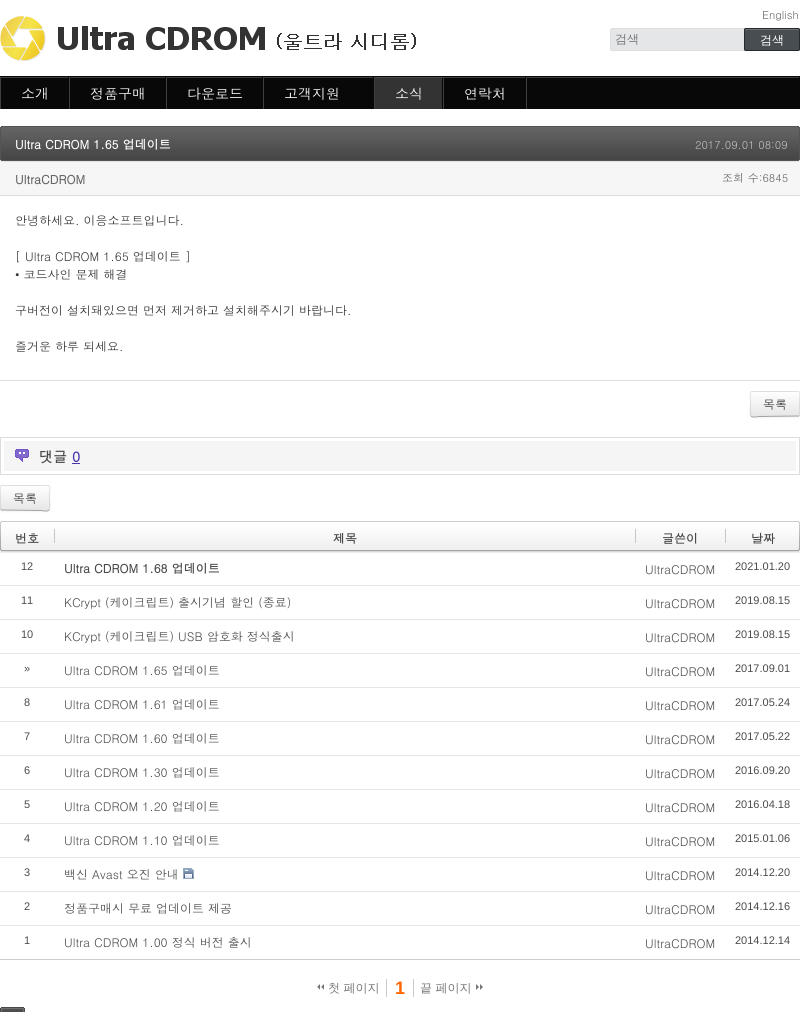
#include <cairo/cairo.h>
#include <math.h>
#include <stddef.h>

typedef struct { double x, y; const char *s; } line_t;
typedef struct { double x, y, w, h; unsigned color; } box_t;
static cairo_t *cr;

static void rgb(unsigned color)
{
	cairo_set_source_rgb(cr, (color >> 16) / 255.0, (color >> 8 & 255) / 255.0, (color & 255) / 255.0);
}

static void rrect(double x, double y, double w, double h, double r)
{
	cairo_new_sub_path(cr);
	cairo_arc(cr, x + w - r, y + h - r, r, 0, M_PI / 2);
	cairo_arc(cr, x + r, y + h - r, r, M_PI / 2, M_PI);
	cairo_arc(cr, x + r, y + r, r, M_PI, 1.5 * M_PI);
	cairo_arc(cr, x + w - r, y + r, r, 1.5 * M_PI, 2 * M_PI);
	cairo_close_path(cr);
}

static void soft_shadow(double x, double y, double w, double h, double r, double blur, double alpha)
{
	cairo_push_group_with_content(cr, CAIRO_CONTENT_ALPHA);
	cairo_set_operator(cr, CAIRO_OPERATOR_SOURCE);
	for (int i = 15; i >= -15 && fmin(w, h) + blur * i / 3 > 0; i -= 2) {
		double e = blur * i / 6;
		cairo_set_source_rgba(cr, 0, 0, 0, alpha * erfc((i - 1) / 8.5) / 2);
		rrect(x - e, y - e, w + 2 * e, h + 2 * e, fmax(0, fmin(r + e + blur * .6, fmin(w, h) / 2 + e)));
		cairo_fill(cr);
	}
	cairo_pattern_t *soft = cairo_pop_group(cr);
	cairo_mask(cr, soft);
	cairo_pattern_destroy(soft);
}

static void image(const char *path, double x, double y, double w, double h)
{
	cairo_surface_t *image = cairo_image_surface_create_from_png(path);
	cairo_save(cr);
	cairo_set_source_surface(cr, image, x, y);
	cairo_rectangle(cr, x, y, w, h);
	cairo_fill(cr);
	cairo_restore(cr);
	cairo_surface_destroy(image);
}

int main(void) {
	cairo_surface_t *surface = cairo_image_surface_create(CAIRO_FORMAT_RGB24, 800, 1012);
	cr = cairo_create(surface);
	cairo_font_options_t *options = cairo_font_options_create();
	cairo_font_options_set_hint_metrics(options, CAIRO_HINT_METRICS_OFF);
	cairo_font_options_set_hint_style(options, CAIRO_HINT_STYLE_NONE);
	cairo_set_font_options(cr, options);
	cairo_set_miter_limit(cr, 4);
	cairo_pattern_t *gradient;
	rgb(0xffffff);
	cairo_paint(cr);
	image("img/1.png", 0, 16, 416, 45);
	rgb(0xe5e6e8);
	rrect(610.5, 28.5, 135, 22, 1.5);
	cairo_fill_preserve(cr);
	rgb(0xdedede);
	cairo_set_line_width(cr, 1);
	cairo_stroke(cr);
	rgb(0x484d51);
	rrect(744, 28, 56, 23, 2);
	cairo_fill(cr);
	rgb(0x6d7174);
	cairo_new_path(cr);
	cairo_move_to(cr, 746, 30);
	cairo_line_to(cr, 798, 30);
	cairo_line_to(cr, 799, 31);
	cairo_curve_to(cr, 799, 30, 799, 29, 798, 29);
	cairo_line_to(cr, 755, 29);
	cairo_curve_to(cr, 748, 29, 745, 26, 745, 32);
	cairo_close_path(cr);
	cairo_fill(cr);
	rrect(744.5, 28.5, 55, 22, 1.5);
	rgb(0x272b30);
	cairo_stroke(cr);
	{
		static const box_t items[] = {
			{0, 76, 800, 33, 0x080808},
			{1, 77, 798, 1, 0x3e3e3e},
			{69, 77, 1, 32, 0x3e3e3e},
			{0, 77, 1, 32, 0x3e3e3e},
			{68, 77, 1, 1, 0x080808},
			{166, 77, 1, 32, 0x3e3e3e},
			{165, 77, 1, 1, 0x080808},
			{263, 77, 1, 32, 0x3e3e3e},
			{262, 77, 1, 1, 0x080808},
			{373, 77, 1, 1, 0x080808},
			{375, 78, 67, 31, 0x333333},
			{374, 77, 70, 1, 0x4a4a4a},
			{443, 77, 1, 32, 0x3e3e3e},
			{374, 77, 1, 32, 0x3e3e3e},
			{526, 77, 1, 32, 0x3e3e3e},
			{525, 77, 1, 1, 0x080808},
		};
		for (size_t i = 0; i < sizeof items / sizeof *items; i++) {
			rgb(items[i].color);
			cairo_rectangle(cr, items[i].x, items[i].y, items[i].w, items[i].h);
			cairo_fill(cr);
		}
	}
	image("img/2.png", 0, 126, 798, 36);
	image("img/3.png", 798, 126, 2, 36);
	{
		static const box_t items[] = {
			{0, 162, 800, 33, 0xf6f6f6},
			{0, 195, 800, 1, 0xdddddd},
			{0, 380, 800, 1, 0xdddddd},
		};
		for (size_t i = 0; i < sizeof items / sizeof *items; i++) {
			rgb(items[i].color);
			cairo_rectangle(cr, items[i].x, items[i].y, items[i].w, items[i].h);
			cairo_fill(cr);
		}
	}
	rgb(0x000000);
	soft_shadow(750, 392, 50, 26, 2, 1, 0.05);
	rgb(0xf5f5f5);
	rrect(750, 391, 50, 26, 2);
	cairo_fill(cr);
	cairo_save(cr);
	rrect(750, 391, 50, 26, 2);
	cairo_clip(cr);
	gradient = cairo_pattern_create_linear(775, 392, 775, 416);
	cairo_pattern_add_color_stop_rgba(gradient, 0, 1, 1, 1, 1);
	cairo_pattern_add_color_stop_rgba(gradient, 1, 0.902, 0.902, 0.902, 1);
	cairo_set_source(cr, gradient);
	cairo_pattern_destroy(gradient);
	cairo_rectangle(cr, 750, 392, 50, 24);
	cairo_fill(cr);
	cairo_restore(cr);
	rgb(0xfefefe);
	cairo_new_path(cr);
	cairo_move_to(cr, 752, 393);
	cairo_line_to(cr, 798, 393);
	cairo_line_to(cr, 799, 394);
	cairo_curve_to(cr, 799, 390, 796, 392, 790, 392);
	cairo_line_to(cr, 760, 392);
	cairo_curve_to(cr, 753, 392, 751, 390, 751, 395);
	cairo_close_path(cr);
	cairo_fill(cr);
	cairo_new_path(cr);
	cairo_move_to(cr, 799, 416);
	cairo_line_to(cr, 759.5, 416.5);
	cairo_curve_to(cr, 756.5, 416.5, 753, 418, 751, 416);
	rgb(0xa2a2a2);
	cairo_stroke(cr);
	cairo_new_path(cr);
	cairo_move_to(cr, 751, 416);
	cairo_curve_to(cr, 749.5, 414.5, 750.5, 406, 750.5, 404);
	cairo_curve_to(cr, 750.5, 390, 747.5, 391.5, 759.5, 391.5);
	cairo_line_to(cr, 790.5, 391.5);
	cairo_curve_to(cr, 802.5, 391.5, 799.5, 390, 799.5, 404);
	cairo_curve_to(cr, 799.5, 406, 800.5, 414.5, 799, 416);
	cairo_set_source_rgba(cr, 0, 0, 0, 0.1);
	cairo_stroke(cr);
	cairo_rectangle(cr, 0.5, 437.5, 799, 37);
	rgb(0xdddddd);
	cairo_stroke(cr);
	rgb(0xf5f5f5);
	cairo_rectangle(cr, 4, 441, 792, 30);
	cairo_fill(cr);
	image("img/4.png", 15, 449, 14, 13);
	rgb(0x4736ac);
	cairo_rectangle(cr, 72, 463, 8, 1);
	cairo_fill(cr);
	rgb(0x000000);
	soft_shadow(0, 486, 50, 26, 2, 1, 0.05);
	rgb(0xf5f5f5);
	rrect(0, 485, 50, 26, 2);
	cairo_fill(cr);
	cairo_save(cr);
	rrect(0, 485, 50, 26, 2);
	cairo_clip(cr);
	gradient = cairo_pattern_create_linear(25, 486, 25, 510);
	cairo_pattern_add_color_stop_rgba(gradient, 0, 1, 1, 1, 1);
	cairo_pattern_add_color_stop_rgba(gradient, 1, 0.902, 0.902, 0.902, 1);
	cairo_set_source(cr, gradient);
	cairo_pattern_destroy(gradient);
	cairo_rectangle(cr, 0, 486, 50, 24);
	cairo_fill(cr);
	cairo_restore(cr);
	rgb(0xfefefe);
	cairo_new_path(cr);
	cairo_move_to(cr, 2, 487);
	cairo_line_to(cr, 48, 487);
	cairo_line_to(cr, 49, 488);
	cairo_curve_to(cr, 49, 484, 46, 486, 40, 486);
	cairo_line_to(cr, 10, 486);
	cairo_curve_to(cr, 3, 486, 1, 484, 1, 489);
	cairo_close_path(cr);
	cairo_fill(cr);
	cairo_new_path(cr);
	cairo_move_to(cr, 49, 510);
	cairo_curve_to(cr, 47, 512, 43.5, 510.5, 40.5, 510.5);
	cairo_line_to(cr, 1, 510);
	rgb(0xa2a2a2);
	cairo_stroke(cr);
	cairo_new_path(cr);
	cairo_move_to(cr, 1, 510);
	cairo_curve_to(cr, -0.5, 508.5, 0.5, 500, 0.5, 498);
	cairo_curve_to(cr, 0.5, 484, -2.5, 485.5, 9.5, 485.5);
	cairo_line_to(cr, 40.5, 485.5);
	cairo_curve_to(cr, 52.5, 485.5, 49.5, 484, 49.5, 498);
	cairo_curve_to(cr, 49.5, 500, 50.5, 508.5, 49, 510);
	cairo_set_source_rgba(cr, 0, 0, 0, 0.1);
	cairo_stroke(cr);
	image("img/5.png", 0, 521, 798, 32);
	image("img/6.png", 798, 521, 2, 32);
	{
		static const box_t items[] = {
			{0, 959, 800, 1, 0xcdcdcd},
			{54, 529, 1, 14, 0xc7c7c7},
			{635, 529, 1, 14, 0xc7c7c7},
			{725, 529, 1, 14, 0xc7c7c7},
			{0, 585, 800, 1, 0xe6e6e6},
			{0, 619, 800, 1, 0xe6e6e6},
			{0, 653, 800, 1, 0xe6e6e6},
			{0, 687, 800, 1, 0xe6e6e6},
			{0, 721, 800, 1, 0xe6e6e6},
			{0, 755, 800, 1, 0xe6e6e6},
			{0, 789, 800, 1, 0xe6e6e6},
			{0, 823, 800, 1, 0xe6e6e6},
			{0, 857, 800, 1, 0xe6e6e6},
			{0, 891, 800, 1, 0xe6e6e6},
		};
		for (size_t i = 0; i < sizeof items / sizeof *items; i++) {
			rgb(items[i].color);
			cairo_rectangle(cr, items[i].x, items[i].y, items[i].w, items[i].h);
			cairo_fill(cr);
		}
	}
	image("img/7.png", 183, 868, 11, 11);
	cairo_rectangle(cr, 0, 925, 800, 1);
	cairo_fill(cr);
	rgb(0x767676);
	cairo_new_path(cr);
	cairo_move_to(cr, 320, 984);
	cairo_line_to(cr, 320, 990);
	cairo_line_to(cr, 317, 987);
	cairo_close_path(cr);
	cairo_fill(cr);
	rgb(0xffffff);
	cairo_new_path(cr);
	cairo_move_to(cr, 320, 990);
	cairo_line_to(cr, 317, 990);
	cairo_line_to(cr, 317, 987);
	cairo_close_path(cr);
	cairo_fill(cr);
	rgb(0x767676);
	cairo_new_path(cr);
	cairo_move_to(cr, 324, 984);
	cairo_line_to(cr, 324, 990);
	cairo_line_to(cr, 321, 987);
	cairo_close_path(cr);
	cairo_fill(cr);
	rgb(0xffffff);
	cairo_new_path(cr);
	cairo_move_to(cr, 324, 990);
	cairo_line_to(cr, 321, 990);
	cairo_line_to(cr, 321, 987);
	cairo_close_path(cr);
	cairo_fill(cr);
	rgb(0xcccccc);
	cairo_rectangle(cr, 413, 979, 1, 18);
	cairo_fill(cr);
	cairo_rectangle(cr, 386, 979, 1, 18);
	cairo_fill(cr);
	rgb(0x767676);
	cairo_new_path(cr);
	cairo_move_to(cr, 476, 990);
	cairo_line_to(cr, 476, 984);
	cairo_line_to(cr, 479, 987);
	cairo_close_path(cr);
	cairo_move_to(cr, 480, 990);
	cairo_line_to(cr, 480, 984);
	cairo_line_to(cr, 483, 987);
	cairo_close_path(cr);
	cairo_fill(cr);
	image("img/8.png", 0, 1007, 25, 5);
	cairo_select_font_face(cr, "Dotum", CAIRO_FONT_SLANT_NORMAL, CAIRO_FONT_WEIGHT_NORMAL);
	cairo_set_font_size(cr, 11);
	rgb(0x666666);
	cairo_move_to(cr, 762, 19);
	cairo_show_text(cr, "English");
	cairo_select_font_face(cr, "WenQuanYi Zen Hei Medium", CAIRO_FONT_SLANT_NORMAL, CAIRO_FONT_WEIGHT_NORMAL);
	cairo_set_font_size(cr, 12);
	rgb(0x767676);
	cairo_move_to(cr, 615, 43);
	cairo_show_text(cr, "검색");
	rgb(0xffffff);
	cairo_move_to(cr, 760, 44);
	cairo_show_text(cr, "검색");
	cairo_select_font_face(cr, "Dotum", CAIRO_FONT_SLANT_NORMAL, CAIRO_FONT_WEIGHT_NORMAL);
	cairo_set_font_size(cr, 14);
	{
		static const line_t items[] = {
			{21, 99, "소개"},
			{90, 99, "정품구매"},
			{187, 99, "다운로드"},
			{284, 99, "고객지원"},
			{395, 99, "소식"},
			{464, 99, "연락처"},
		};
		for (size_t i = 0; i < sizeof items / sizeof *items; i++) {
			cairo_move_to(cr, items[i].x, items[i].y);
			cairo_show_text(cr, items[i].s);
		}
	}
	cairo_select_font_face(cr, "Dotum", CAIRO_FONT_SLANT_NORMAL, CAIRO_FONT_WEIGHT_BOLD);
	cairo_set_font_size(cr, 12);
	cairo_move_to(cr, 15, 149);
	cairo_show_text(cr, "Ultra CDROM 1.65 업데이트");
	cairo_select_font_face(cr, "Dotum", CAIRO_FONT_SLANT_NORMAL, CAIRO_FONT_WEIGHT_NORMAL);
	cairo_set_font_size(cr, 11);
	rgb(0xbfbfbf);
	cairo_move_to(cr, 695, 149);
	cairo_show_text(cr, "2017.09.01 08:09");
	cairo_select_font_face(cr, "Dotum", CAIRO_FONT_SLANT_NORMAL, CAIRO_FONT_WEIGHT_BOLD);
	cairo_set_font_size(cr, 12);
	rgb(0x666666);
	cairo_move_to(cr, 15, 184);
	cairo_show_text(cr, "UltraCDROM");
	cairo_select_font_face(cr, "Dotum", CAIRO_FONT_SLANT_NORMAL, CAIRO_FONT_WEIGHT_NORMAL);
	cairo_set_font_size(cr, 11);
	cairo_move_to(cr, 722, 182);
	cairo_show_text(cr, "조회 수:6845");
	cairo_set_font_size(cr, 12);
	rgb(0x333333);
	{
		static const line_t items[] = {
			{15, 225, "안녕하세요. 이응소프트입니다."},
			{15, 261, "[ Ultra CDROM 1.65 업데이트 ]"},
			{15, 279, "• 코드사인 문제 해결"},
			{15, 315, "구버전이 설치돼있으면 먼저 제거하고 설치해주시기 바랍니다."},
			{15, 351, "즐거운 하루 되세요."},
			{763, 409, "목록"},
		};
		for (size_t i = 0; i < sizeof items / sizeof *items; i++) {
			cairo_move_to(cr, items[i].x, items[i].y);
			cairo_show_text(cr, items[i].s);
		}
	}
	cairo_select_font_face(cr, "Dotum", CAIRO_FONT_SLANT_NORMAL, CAIRO_FONT_WEIGHT_BOLD);
	cairo_set_font_size(cr, 14);
	rgb(0x4a4a4a);
	cairo_move_to(cr, 39, 462);
	cairo_show_text(cr, "댓글");
	rgb(0x4736ac);
	cairo_move_to(cr, 72, 462);
	cairo_show_text(cr, "0");
	cairo_select_font_face(cr, "Dotum", CAIRO_FONT_SLANT_NORMAL, CAIRO_FONT_WEIGHT_NORMAL);
	cairo_set_font_size(cr, 12);
	rgb(0x333333);
	cairo_move_to(cr, 13, 503);
	cairo_show_text(cr, "목록");
	cairo_select_font_face(cr, "Dotum", CAIRO_FONT_SLANT_NORMAL, CAIRO_FONT_WEIGHT_BOLD);
	rgb(0x4a4a4a);
	{
		static const line_t items[] = {
			{15, 543, "번호"},
			{333, 543, "제목"},
			{662, 543, "글쓴이"},
			{751, 543, "날짜"},
		};
		for (size_t i = 0; i < sizeof items / sizeof *items; i++) {
			cairo_move_to(cr, items[i].x, items[i].y);
			cairo_show_text(cr, items[i].s);
		}
	}
	cairo_select_font_face(cr, "Liberation Sans", CAIRO_FONT_SLANT_NORMAL, CAIRO_FONT_WEIGHT_NORMAL);
	cairo_set_font_size(cr, 11);
	cairo_move_to(cr, 21, 570);
	cairo_show_text(cr, "12");
	cairo_select_font_face(cr, "Dotum", CAIRO_FONT_SLANT_NORMAL, CAIRO_FONT_WEIGHT_BOLD);
	cairo_set_font_size(cr, 12);
	cairo_move_to(cr, 64, 573);
	cairo_show_text(cr, "Ultra CDROM 1.68 업데이트");
	cairo_select_font_face(cr, "Dotum", CAIRO_FONT_SLANT_NORMAL, CAIRO_FONT_WEIGHT_NORMAL);
	cairo_move_to(cr, 645, 574);
	cairo_show_text(cr, "UltraCDROM");
	cairo_select_font_face(cr, "Liberation Sans", CAIRO_FONT_SLANT_NORMAL, CAIRO_FONT_WEIGHT_NORMAL);
	cairo_set_font_size(cr, 11);
	cairo_move_to(cr, 735, 570);
	cairo_show_text(cr, "2021.01.20");
	cairo_move_to(cr, 21, 604);
	cairo_show_text(cr, "11");
	cairo_select_font_face(cr, "Dotum", CAIRO_FONT_SLANT_NORMAL, CAIRO_FONT_WEIGHT_NORMAL);
	cairo_set_font_size(cr, 12);
	cairo_move_to(cr, 64, 607);
	cairo_show_text(cr, "KCrypt (케이크립트) 출시기념 할인 (종료)");
	cairo_move_to(cr, 645, 608);
	cairo_show_text(cr, "UltraCDROM");
	cairo_select_font_face(cr, "Liberation Sans", CAIRO_FONT_SLANT_NORMAL, CAIRO_FONT_WEIGHT_NORMAL);
	cairo_set_font_size(cr, 11);
	cairo_move_to(cr, 735, 604);
	cairo_show_text(cr, "2019.08.15");
	cairo_move_to(cr, 21, 638);
	cairo_show_text(cr, "10");
	cairo_select_font_face(cr, "Dotum", CAIRO_FONT_SLANT_NORMAL, CAIRO_FONT_WEIGHT_NORMAL);
	cairo_set_font_size(cr, 12);
	cairo_move_to(cr, 64, 641);
	cairo_show_text(cr, "KCrypt (케이크립트) USB 암호화 정식출시");
	cairo_move_to(cr, 645, 642);
	cairo_show_text(cr, "UltraCDROM");
	cairo_select_font_face(cr, "Liberation Sans", CAIRO_FONT_SLANT_NORMAL, CAIRO_FONT_WEIGHT_NORMAL);
	cairo_set_font_size(cr, 11);
	cairo_move_to(cr, 735, 638);
	cairo_show_text(cr, "2019.08.15");
	cairo_move_to(cr, 24, 672);
	cairo_show_text(cr, "»");
	cairo_select_font_face(cr, "Dotum", CAIRO_FONT_SLANT_NORMAL, CAIRO_FONT_WEIGHT_NORMAL);
	cairo_set_font_size(cr, 12);
	cairo_move_to(cr, 64, 675);
	cairo_show_text(cr, "Ultra CDROM 1.65 업데이트");
	cairo_move_to(cr, 645, 676);
	cairo_show_text(cr, "UltraCDROM");
	cairo_select_font_face(cr, "Liberation Sans", CAIRO_FONT_SLANT_NORMAL, CAIRO_FONT_WEIGHT_NORMAL);
	cairo_set_font_size(cr, 11);
	cairo_move_to(cr, 735, 672);
	cairo_show_text(cr, "2017.09.01");
	cairo_move_to(cr, 24, 706);
	cairo_show_text(cr, "8");
	cairo_select_font_face(cr, "Dotum", CAIRO_FONT_SLANT_NORMAL, CAIRO_FONT_WEIGHT_NORMAL);
	cairo_set_font_size(cr, 12);
	cairo_move_to(cr, 64, 709);
	cairo_show_text(cr, "Ultra CDROM 1.61 업데이트");
	cairo_move_to(cr, 645, 710);
	cairo_show_text(cr, "UltraCDROM");
	cairo_select_font_face(cr, "Liberation Sans", CAIRO_FONT_SLANT_NORMAL, CAIRO_FONT_WEIGHT_NORMAL);
	cairo_set_font_size(cr, 11);
	cairo_move_to(cr, 735, 706);
	cairo_show_text(cr, "2017.05.24");
	cairo_move_to(cr, 24, 740);
	cairo_show_text(cr, "7");
	cairo_select_font_face(cr, "Dotum", CAIRO_FONT_SLANT_NORMAL, CAIRO_FONT_WEIGHT_NORMAL);
	cairo_set_font_size(cr, 12);
	cairo_move_to(cr, 64, 743);
	cairo_show_text(cr, "Ultra CDROM 1.60 업데이트");
	cairo_move_to(cr, 645, 744);
	cairo_show_text(cr, "UltraCDROM");
	cairo_select_font_face(cr, "Liberation Sans", CAIRO_FONT_SLANT_NORMAL, CAIRO_FONT_WEIGHT_NORMAL);
	cairo_set_font_size(cr, 11);
	cairo_move_to(cr, 735, 740);
	cairo_show_text(cr, "2017.05.22");
	cairo_move_to(cr, 24, 774);
	cairo_show_text(cr, "6");
	cairo_select_font_face(cr, "Dotum", CAIRO_FONT_SLANT_NORMAL, CAIRO_FONT_WEIGHT_NORMAL);
	cairo_set_font_size(cr, 12);
	cairo_move_to(cr, 64, 777);
	cairo_show_text(cr, "Ultra CDROM 1.30 업데이트");
	cairo_move_to(cr, 645, 778);
	cairo_show_text(cr, "UltraCDROM");
	cairo_select_font_face(cr, "Liberation Sans", CAIRO_FONT_SLANT_NORMAL, CAIRO_FONT_WEIGHT_NORMAL);
	cairo_set_font_size(cr, 11);
	cairo_move_to(cr, 735, 774);
	cairo_show_text(cr, "2016.09.20");
	cairo_move_to(cr, 24, 808);
	cairo_show_text(cr, "5");
	cairo_select_font_face(cr, "Dotum", CAIRO_FONT_SLANT_NORMAL, CAIRO_FONT_WEIGHT_NORMAL);
	cairo_set_font_size(cr, 12);
	cairo_move_to(cr, 64, 811);
	cairo_show_text(cr, "Ultra CDROM 1.20 업데이트");
	cairo_move_to(cr, 645, 812);
	cairo_show_text(cr, "UltraCDROM");
	cairo_select_font_face(cr, "Liberation Sans", CAIRO_FONT_SLANT_NORMAL, CAIRO_FONT_WEIGHT_NORMAL);
	cairo_set_font_size(cr, 11);
	cairo_move_to(cr, 735, 808);
	cairo_show_text(cr, "2016.04.18");
	cairo_move_to(cr, 24, 842);
	cairo_show_text(cr, "4");
	cairo_select_font_face(cr, "Dotum", CAIRO_FONT_SLANT_NORMAL, CAIRO_FONT_WEIGHT_NORMAL);
	cairo_set_font_size(cr, 12);
	cairo_move_to(cr, 64, 845);
	cairo_show_text(cr, "Ultra CDROM 1.10 업데이트");
	cairo_move_to(cr, 645, 846);
	cairo_show_text(cr, "UltraCDROM");
	cairo_select_font_face(cr, "Liberation Sans", CAIRO_FONT_SLANT_NORMAL, CAIRO_FONT_WEIGHT_NORMAL);
	cairo_set_font_size(cr, 11);
	cairo_move_to(cr, 735, 842);
	cairo_show_text(cr, "2015.01.06");
	cairo_move_to(cr, 24, 876);
	cairo_show_text(cr, "3");
	cairo_select_font_face(cr, "Dotum", CAIRO_FONT_SLANT_NORMAL, CAIRO_FONT_WEIGHT_NORMAL);
	cairo_set_font_size(cr, 12);
	cairo_move_to(cr, 64, 879);
	cairo_show_text(cr, "백신 Avast 오진 안내");
	cairo_move_to(cr, 645, 880);
	cairo_show_text(cr, "UltraCDROM");
	cairo_select_font_face(cr, "Liberation Sans", CAIRO_FONT_SLANT_NORMAL, CAIRO_FONT_WEIGHT_NORMAL);
	cairo_set_font_size(cr, 11);
	cairo_move_to(cr, 735, 876);
	cairo_show_text(cr, "2014.12.20");
	cairo_move_to(cr, 24, 910);
	cairo_show_text(cr, "2");
	cairo_select_font_face(cr, "Dotum", CAIRO_FONT_SLANT_NORMAL, CAIRO_FONT_WEIGHT_NORMAL);
	cairo_set_font_size(cr, 12);
	cairo_move_to(cr, 64, 913);
	cairo_show_text(cr, "정품구매시 무료 업데이트 제공");
	cairo_move_to(cr, 645, 914);
	cairo_show_text(cr, "UltraCDROM");
	cairo_select_font_face(cr, "Liberation Sans", CAIRO_FONT_SLANT_NORMAL, CAIRO_FONT_WEIGHT_NORMAL);
	cairo_set_font_size(cr, 11);
	cairo_move_to(cr, 735, 910);
	cairo_show_text(cr, "2014.12.16");
	cairo_move_to(cr, 24, 944);
	cairo_show_text(cr, "1");
	cairo_select_font_face(cr, "Dotum", CAIRO_FONT_SLANT_NORMAL, CAIRO_FONT_WEIGHT_NORMAL);
	cairo_set_font_size(cr, 12);
	cairo_move_to(cr, 64, 947);
	cairo_show_text(cr, "Ultra CDROM 1.00 정식 버전 출시");
	cairo_move_to(cr, 645, 948);
	cairo_show_text(cr, "UltraCDROM");
	cairo_select_font_face(cr, "Liberation Sans", CAIRO_FONT_SLANT_NORMAL, CAIRO_FONT_WEIGHT_NORMAL);
	cairo_set_font_size(cr, 11);
	cairo_move_to(cr, 735, 944);
	cairo_show_text(cr, "2014.12.14");
	cairo_select_font_face(cr, "WenQuanYi Zen Hei Medium", CAIRO_FONT_SLANT_NORMAL, CAIRO_FONT_WEIGHT_NORMAL);
	cairo_set_font_size(cr, 12);
	rgb(0x767676);
	cairo_move_to(cr, 328, 992);
	cairo_show_text(cr, "첫 페이지");
	cairo_select_font_face(cr, "Liberation Sans", CAIRO_FONT_SLANT_NORMAL, CAIRO_FONT_WEIGHT_BOLD);
	cairo_set_font_size(cr, 18);
	rgb(0xff6600);
	cairo_move_to(cr, 395, 994);
	cairo_show_text(cr, "1");
	cairo_select_font_face(cr, "WenQuanYi Zen Hei Medium", CAIRO_FONT_SLANT_NORMAL, CAIRO_FONT_WEIGHT_NORMAL);
	cairo_set_font_size(cr, 12);
	rgb(0x767676);
	cairo_move_to(cr, 420, 992);
	cairo_show_text(cr, "끝 페이지");
	cairo_surface_write_to_png(surface, "page.png");
	cairo_font_options_destroy(options);
	cairo_destroy(cr);
	cairo_surface_destroy(surface);
	return 0;
}
